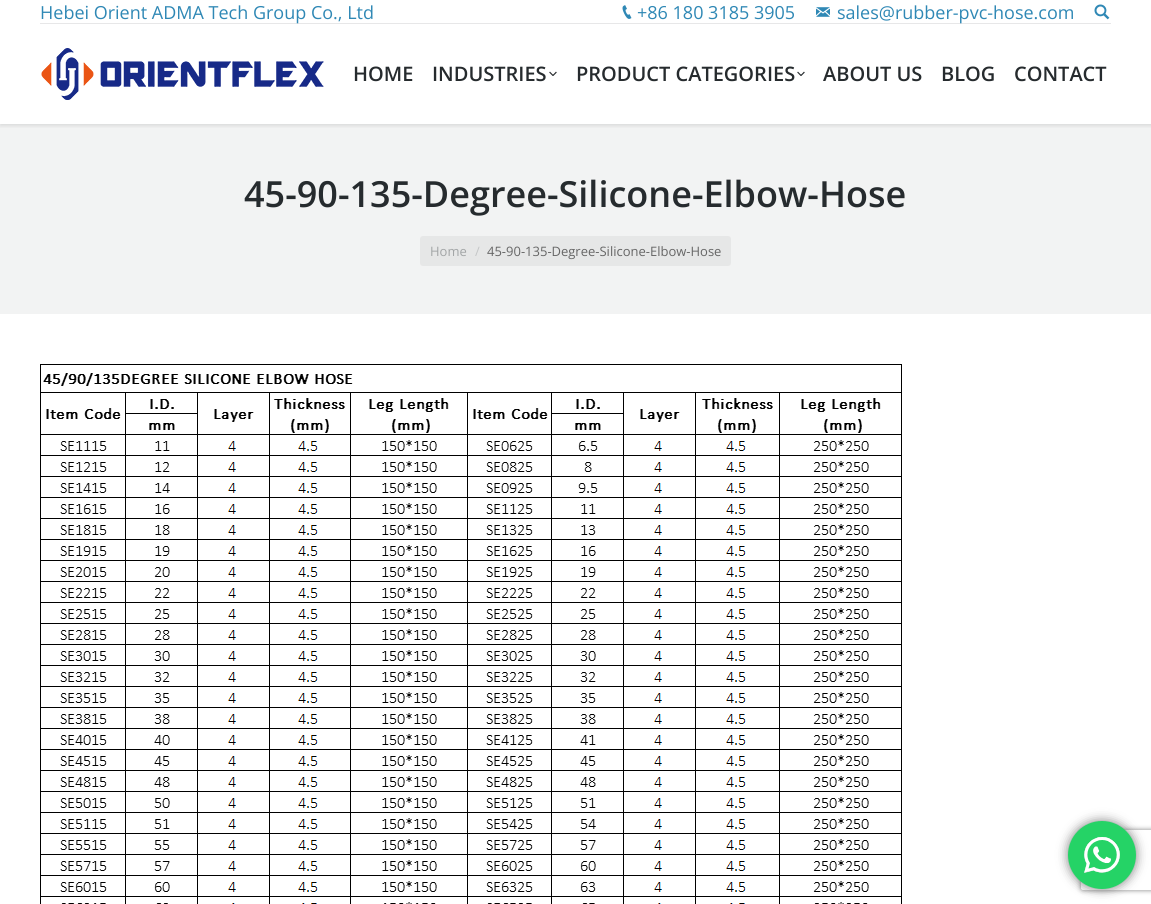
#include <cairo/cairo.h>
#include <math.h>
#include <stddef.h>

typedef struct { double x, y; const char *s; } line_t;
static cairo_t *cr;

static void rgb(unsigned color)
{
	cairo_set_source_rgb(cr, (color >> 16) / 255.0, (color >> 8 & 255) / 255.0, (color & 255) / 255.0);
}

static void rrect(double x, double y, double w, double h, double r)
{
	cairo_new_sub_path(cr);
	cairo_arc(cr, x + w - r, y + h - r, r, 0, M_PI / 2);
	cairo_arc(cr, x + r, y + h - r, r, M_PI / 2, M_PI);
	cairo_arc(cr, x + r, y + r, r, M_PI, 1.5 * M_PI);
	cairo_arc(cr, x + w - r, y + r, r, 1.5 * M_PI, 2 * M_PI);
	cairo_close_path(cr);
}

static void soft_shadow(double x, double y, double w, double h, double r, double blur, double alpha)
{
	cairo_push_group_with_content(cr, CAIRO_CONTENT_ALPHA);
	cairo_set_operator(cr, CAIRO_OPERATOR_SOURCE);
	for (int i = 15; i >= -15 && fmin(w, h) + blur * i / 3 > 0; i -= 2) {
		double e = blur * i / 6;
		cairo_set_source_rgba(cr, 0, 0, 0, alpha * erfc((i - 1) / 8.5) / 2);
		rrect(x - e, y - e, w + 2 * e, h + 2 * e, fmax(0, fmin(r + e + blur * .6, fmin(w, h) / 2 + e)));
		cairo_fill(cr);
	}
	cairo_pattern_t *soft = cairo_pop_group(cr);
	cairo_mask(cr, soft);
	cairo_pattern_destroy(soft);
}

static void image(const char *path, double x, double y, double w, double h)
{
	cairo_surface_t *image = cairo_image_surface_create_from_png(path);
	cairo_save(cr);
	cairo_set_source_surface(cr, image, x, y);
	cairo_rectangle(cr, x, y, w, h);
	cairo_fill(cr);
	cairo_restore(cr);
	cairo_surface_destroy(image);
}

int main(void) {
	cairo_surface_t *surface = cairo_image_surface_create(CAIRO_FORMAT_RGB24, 1151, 904);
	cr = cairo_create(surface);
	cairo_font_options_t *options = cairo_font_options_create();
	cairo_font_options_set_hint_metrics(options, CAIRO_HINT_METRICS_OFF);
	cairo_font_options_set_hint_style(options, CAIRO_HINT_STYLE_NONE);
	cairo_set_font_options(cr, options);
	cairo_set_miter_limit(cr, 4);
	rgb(0xffffff);
	cairo_paint(cr);
	rgb(0xf2f3f3);
	cairo_rectangle(cr, 0, 124, 1151, 190);
	cairo_fill(cr);
	cairo_save(cr);
	cairo_rectangle(cr, 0, 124, 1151, 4);
	cairo_clip(cr);
	rgb(0x000000);
	soft_shadow(0, 0, 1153, 126, 0, 2, 0.1);
	cairo_restore(cr);
	image("img/1.png", 622, 5, 10, 14);
	image("img/2.png", 816, 7, 14, 10);
	image("img/3.png", 1094, 4, 16, 16);
	rgb(0xe7e7e8);
	cairo_rectangle(cr, 40, 23, 1071, 1);
	cairo_fill(cr);
	image("img/4.png", 41, 48, 283, 52);
	image("img/5.png", 549, 71, 8, 5);
	image("img/5.png", 797, 71, 8, 5);
	rgb(0xe6e7e7);
	rrect(420, 236, 311, 30, 3);
	cairo_fill(cr);
	image("img/6.png", 40, 364, 862, 540);
	rgb(0x000000);
	soft_shadow(1068, 821, 68, 68, 34, 5.5, 0.5);
	cairo_save(cr);
	cairo_set_fill_rule(cr, CAIRO_FILL_RULE_EVEN_ODD);
	cairo_new_path(cr);
	cairo_move_to(cr, 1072, 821);
	cairo_line_to(cr, 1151, 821);
	cairo_line_to(cr, 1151, 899);
	cairo_line_to(cr, 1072, 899);
	cairo_close_path(cr);
	cairo_move_to(cr, 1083, 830);
	cairo_line_to(cr, 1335, 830);
	cairo_curve_to(cr, 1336, 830, 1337, 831, 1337, 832);
	cairo_line_to(cr, 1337, 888);
	cairo_curve_to(cr, 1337, 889, 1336, 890, 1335, 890);
	cairo_line_to(cr, 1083, 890);
	cairo_curve_to(cr, 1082, 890, 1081, 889, 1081, 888);
	cairo_line_to(cr, 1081, 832);
	cairo_curve_to(cr, 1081, 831, 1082, 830, 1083, 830);
	cairo_close_path(cr);
	cairo_clip(cr);
	rgb(0x808080);
	soft_shadow(1081, 830, 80, 60, 2, 2.5, 1);
	cairo_restore(cr);
	rgb(0x25d366);
	cairo_arc(cr, 1102, 855, 34, 0, 2 * M_PI);
	cairo_fill(cr);
	image("img/7.png", 1084, 837, 36, 36);
	cairo_select_font_face(cr, "Open Sans", CAIRO_FONT_SLANT_NORMAL, CAIRO_FONT_WEIGHT_NORMAL);
	cairo_set_font_size(cr, 18);
	rgb(0x2f88b5);
	{
		static const line_t items[] = {
			{40, 19, "Hebei Orient ADMA Tech Group Co., Ltd"},
			{637, 19, "+86 180 3185 3905"},
			{837, 19, "sales@rubber-pvc-hose.com"},
		};
		for (size_t i = 0; i < sizeof items / sizeof *items; i++) {
			cairo_move_to(cr, items[i].x, items[i].y);
			cairo_show_text(cr, items[i].s);
		}
	}
	cairo_select_font_face(cr, "Open Sans SemiBold", CAIRO_FONT_SLANT_NORMAL, CAIRO_FONT_WEIGHT_NORMAL);
	cairo_set_font_size(cr, 20);
	rgb(0x262b2e);
	{
		static const line_t items[] = {
			{353, 81, "HOME"},
			{432, 81, "INDUSTRIES"},
			{576, 81, "PRODUCT CATEGORIES"},
			{823, 81, "ABOUT US"},
			{941, 81, "BLOG"},
			{1014, 81, "CONTACT"},
		};
		for (size_t i = 0; i < sizeof items / sizeof *items; i++) {
			cairo_move_to(cr, items[i].x, items[i].y);
			cairo_show_text(cr, items[i].s);
		}
	}
	cairo_set_font_size(cr, 36);
	cairo_move_to(cr, 244, 207);
	cairo_show_text(cr, "45-90-135-Degree-Silicone-Elbow-Hose");
	cairo_select_font_face(cr, "Open Sans", CAIRO_FONT_SLANT_NORMAL, CAIRO_FONT_WEIGHT_NORMAL);
	cairo_set_font_size(cr, 13);
	rgb(0xa2a5a6);
	cairo_move_to(cr, 430, 256);
	cairo_show_text(cr, "Home");
	rgb(0xc4c6c7);
	cairo_move_to(cr, 475, 256);
	cairo_show_text(cr, "/");
	rgb(0x666666);
	cairo_move_to(cr, 487, 256);
	cairo_show_text(cr, "45-90-135-Degree-Silicone-Elbow-Hose");
	cairo_surface_write_to_png(surface, "page.png");
	cairo_font_options_destroy(options);
	cairo_destroy(cr);
	cairo_surface_destroy(surface);
	return 0;
}
